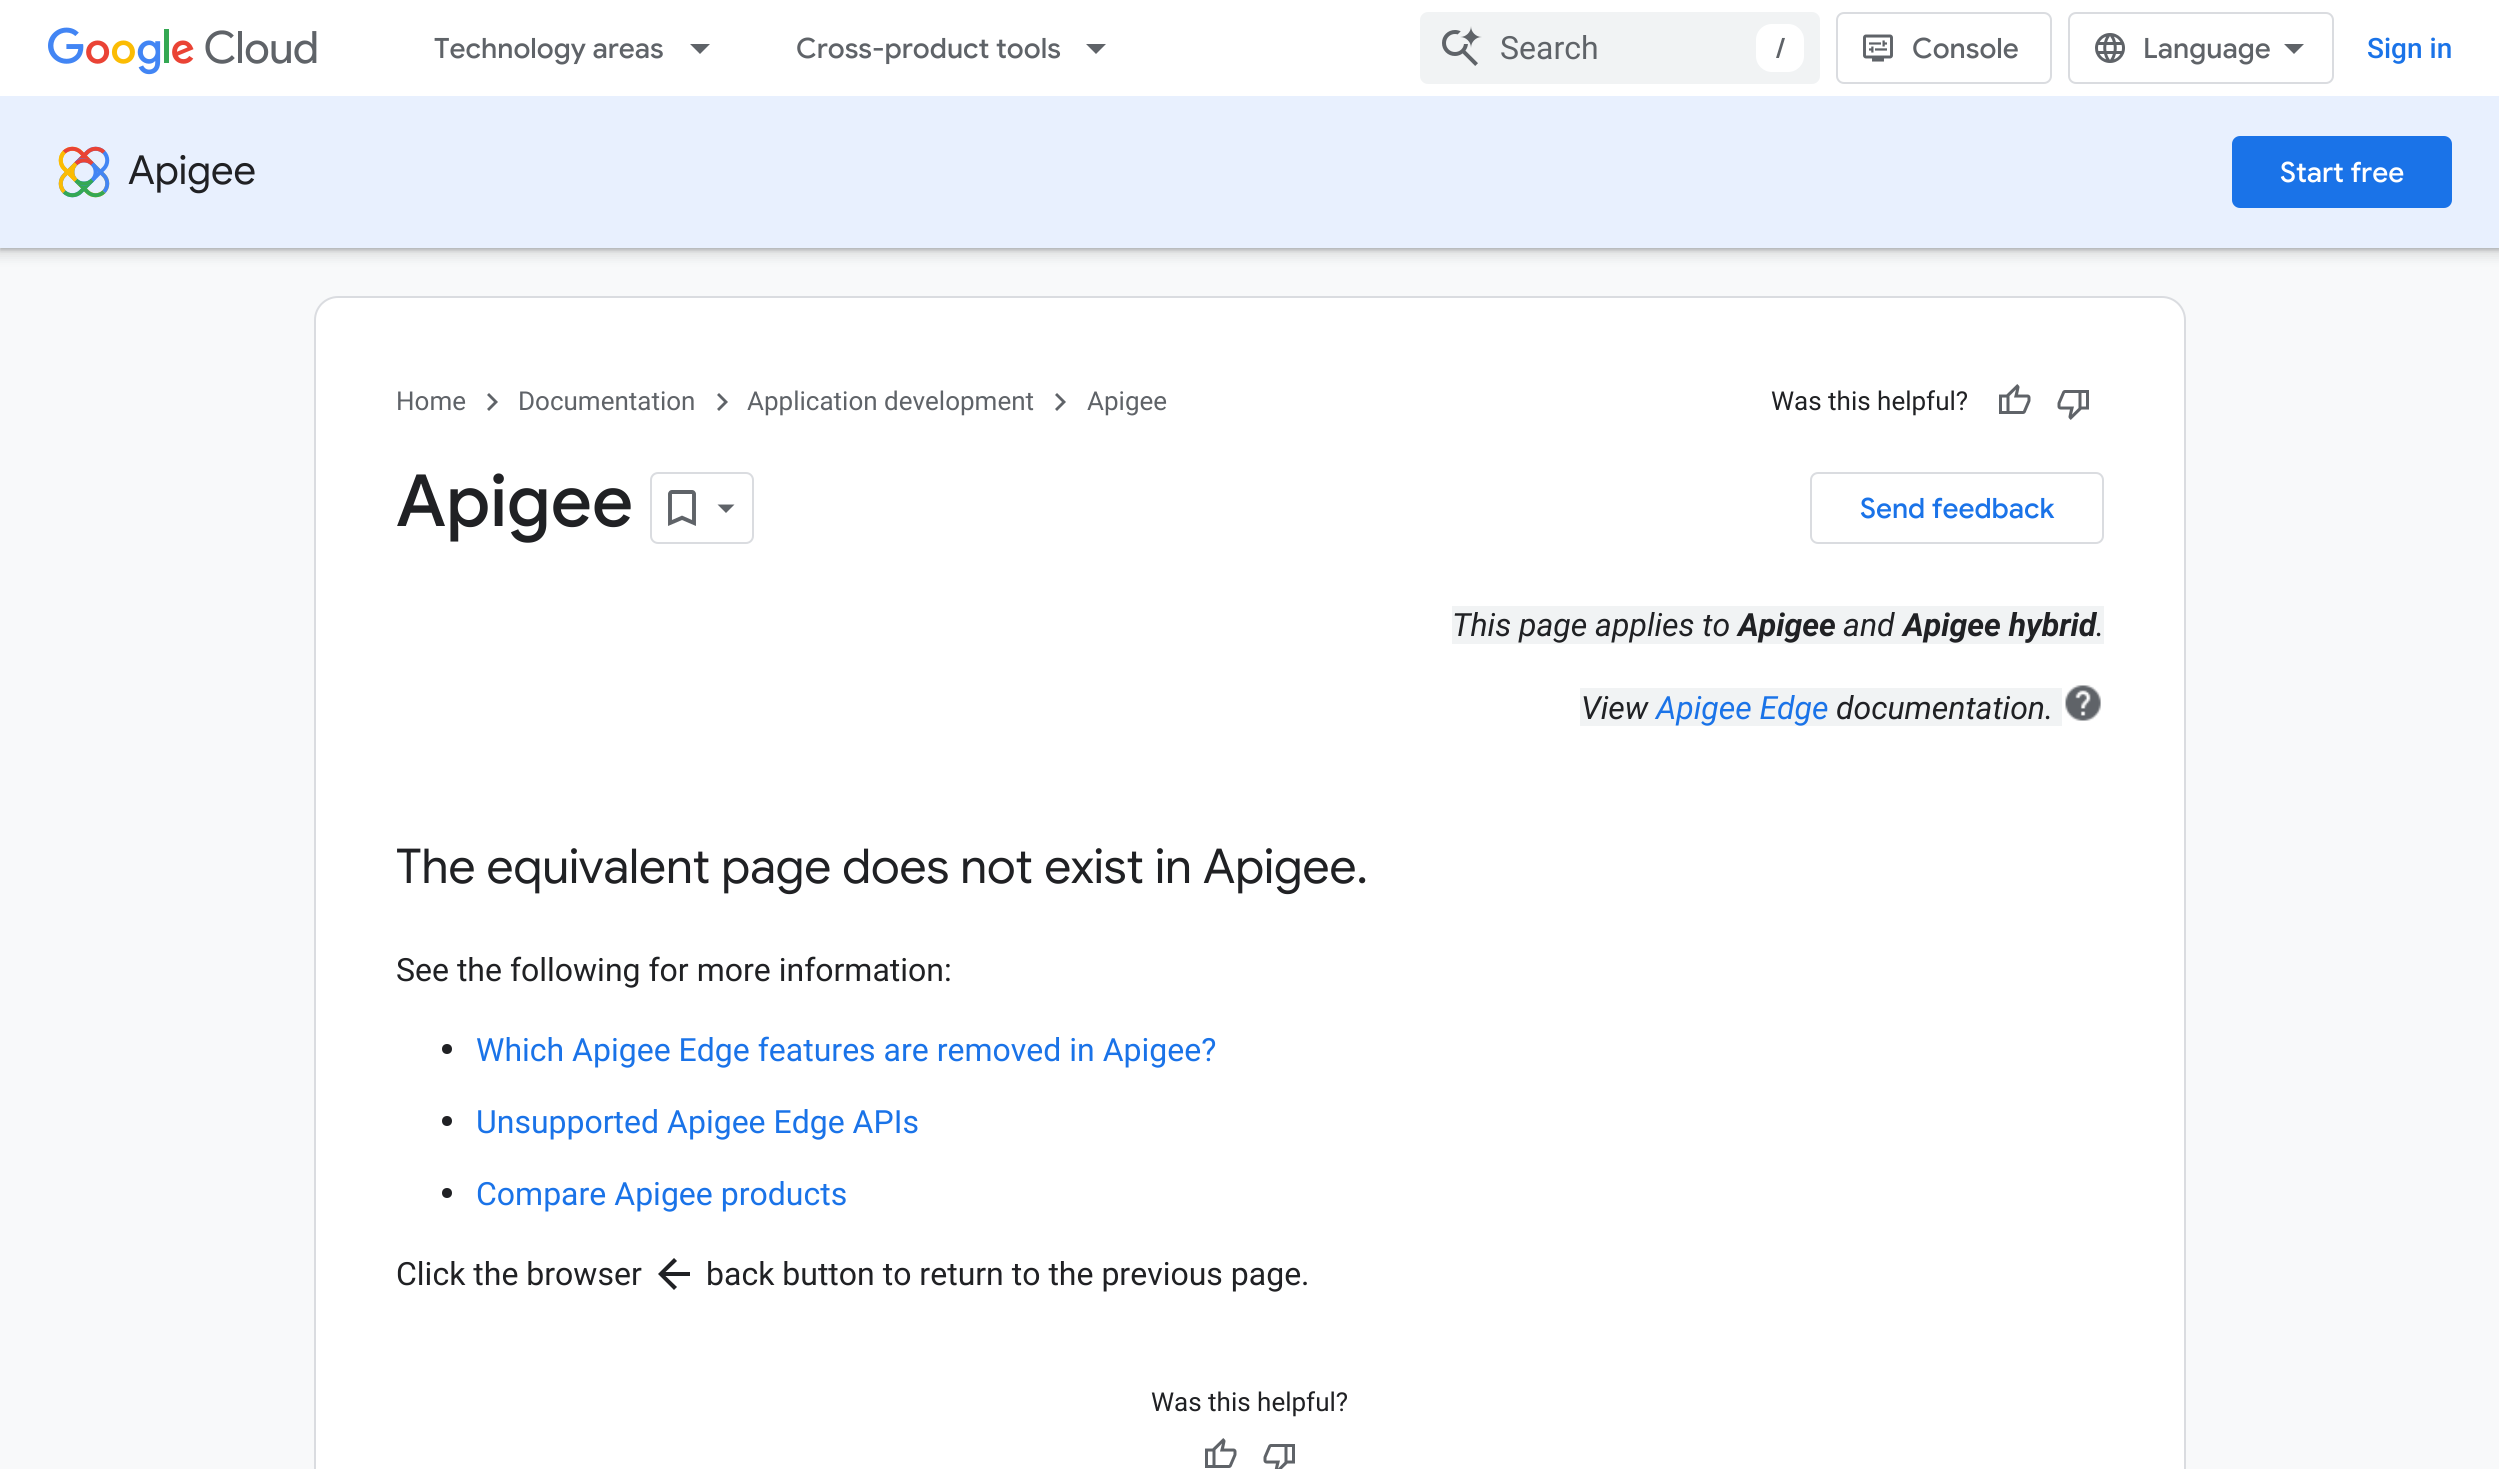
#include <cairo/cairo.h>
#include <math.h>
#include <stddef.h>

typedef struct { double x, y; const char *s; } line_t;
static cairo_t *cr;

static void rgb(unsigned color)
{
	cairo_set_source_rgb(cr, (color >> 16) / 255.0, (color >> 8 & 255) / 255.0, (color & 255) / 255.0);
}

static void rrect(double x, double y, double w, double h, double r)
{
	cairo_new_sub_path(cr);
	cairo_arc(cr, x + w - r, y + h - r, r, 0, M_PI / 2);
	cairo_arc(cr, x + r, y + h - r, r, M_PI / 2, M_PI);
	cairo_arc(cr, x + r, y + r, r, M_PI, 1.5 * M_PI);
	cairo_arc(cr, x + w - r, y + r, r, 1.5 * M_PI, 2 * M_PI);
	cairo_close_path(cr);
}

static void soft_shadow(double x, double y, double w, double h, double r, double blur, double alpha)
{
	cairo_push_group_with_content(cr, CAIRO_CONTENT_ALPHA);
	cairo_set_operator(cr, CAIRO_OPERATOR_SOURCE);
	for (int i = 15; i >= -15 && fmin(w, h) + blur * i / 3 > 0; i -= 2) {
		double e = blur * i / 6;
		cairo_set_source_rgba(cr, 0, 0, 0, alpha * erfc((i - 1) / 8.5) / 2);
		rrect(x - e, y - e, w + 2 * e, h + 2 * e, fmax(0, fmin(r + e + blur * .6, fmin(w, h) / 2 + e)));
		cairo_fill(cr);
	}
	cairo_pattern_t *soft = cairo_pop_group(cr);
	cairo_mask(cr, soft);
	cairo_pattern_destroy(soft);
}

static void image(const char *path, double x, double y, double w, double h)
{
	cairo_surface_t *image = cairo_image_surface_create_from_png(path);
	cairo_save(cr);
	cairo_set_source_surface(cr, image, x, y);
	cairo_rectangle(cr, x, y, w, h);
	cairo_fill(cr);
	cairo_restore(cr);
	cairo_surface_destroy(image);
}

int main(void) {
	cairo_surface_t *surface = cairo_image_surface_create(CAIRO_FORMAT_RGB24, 2499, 1469);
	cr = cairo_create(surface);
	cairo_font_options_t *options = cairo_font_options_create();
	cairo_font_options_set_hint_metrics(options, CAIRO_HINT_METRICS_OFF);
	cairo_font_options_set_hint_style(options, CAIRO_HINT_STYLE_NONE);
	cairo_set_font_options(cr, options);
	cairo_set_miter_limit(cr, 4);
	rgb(0xf8f9fa);
	cairo_paint(cr);
	rgb(0x3c4043);
	soft_shadow(-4, 96, 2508, 160, 0, 6, 0.15);
	soft_shadow(0, 98, 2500, 152, 0, 2, 0.3);
	rgb(0xffffff);
	cairo_rectangle(cr, 0, 0, 2499, 96);
	cairo_fill(cr);
	image("img/1.png", 48, 27, 269, 48);
	rgb(0x5f6368);
	cairo_new_path(cr);
	cairo_move_to(cr, 690, 44);
	cairo_line_to(cr, 710, 44);
	cairo_line_to(cr, 700, 54);
	cairo_close_path(cr);
	cairo_fill(cr);
	cairo_new_path(cr);
	cairo_move_to(cr, 1086, 44);
	cairo_line_to(cr, 1106, 44);
	cairo_line_to(cr, 1096, 54);
	cairo_close_path(cr);
	cairo_fill(cr);
	rgb(0xf1f3f4);
	rrect(1420, 12, 400, 72, 8);
	cairo_fill(cr);
	image("img/2.png", 1442, 26, 40, 40);
	rgb(0xffffff);
	rrect(1756, 24, 48, 48, 16);
	cairo_fill(cr);
	rrect(1837, 13, 214, 70, 7);
	rgb(0xdadce0);
	cairo_stroke(cr);
	image("img/3.png", 1863, 34, 30, 28);
	rrect(2069, 13, 264, 70, 7);
	cairo_stroke(cr);
	image("img/4.png", 2095, 33, 30, 30);
	rgb(0x5f6368);
	cairo_new_path(cr);
	cairo_move_to(cr, 2294, 54);
	cairo_line_to(cr, 2284, 44);
	cairo_line_to(cr, 2304, 44);
	cairo_close_path(cr);
	cairo_fill(cr);
	rgb(0xe8f0fe);
	cairo_rectangle(cr, 0, 96, 2499, 152);
	cairo_fill(cr);
	image("img/5.png", 58, 146, 52, 52);
	rgb(0x1a73e8);
	rrect(2232, 136, 220, 72, 8);
	cairo_fill(cr);
	rgb(0xffffff);
	rrect(315, 297, 1870, 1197, 23);
	cairo_fill_preserve(cr);
	rgb(0xdadce0);
	cairo_stroke(cr);
	rgb(0x5f6368);
	cairo_new_path(cr);
	cairo_move_to(cr, 489, 393);
	cairo_line_to(cr, 498, 402);
	cairo_line_to(cr, 489, 411);
	cairo_line_to(cr, 487, 409);
	cairo_line_to(cr, 494, 402);
	cairo_line_to(cr, 487, 395);
	cairo_close_path(cr);
	cairo_fill(cr);
	cairo_new_path(cr);
	cairo_move_to(cr, 719, 393);
	cairo_line_to(cr, 728, 402);
	cairo_line_to(cr, 719, 411);
	cairo_line_to(cr, 717, 409);
	cairo_line_to(cr, 724, 402);
	cairo_line_to(cr, 717, 395);
	cairo_close_path(cr);
	cairo_fill(cr);
	cairo_new_path(cr);
	cairo_move_to(cr, 1057, 393);
	cairo_line_to(cr, 1066, 402);
	cairo_line_to(cr, 1057, 411);
	cairo_line_to(cr, 1055, 409);
	cairo_line_to(cr, 1062, 402);
	cairo_line_to(cr, 1055, 395);
	cairo_close_path(cr);
	cairo_fill(cr);
	image("img/6.png", 1999, 384, 32, 30);
	image("img/7.png", 2057, 390, 32, 30);
	rrect(651, 473, 102, 70, 7);
	rgb(0xdadce0);
	cairo_stroke(cr);
	image("img/8.png", 668, 490, 28, 36);
	rgb(0x5f6368);
	cairo_new_path(cr);
	cairo_move_to(cr, 717.5, 504.5);
	cairo_line_to(cr, 734.5, 504.5);
	cairo_line_to(cr, 726, 513);
	cairo_close_path(cr);
	cairo_fill(cr);
	rrect(1811, 473, 292, 70, 7);
	rgb(0xdadce0);
	cairo_stroke(cr);
	rgb(0xf1f3f4);
	cairo_rectangle(cr, 1452, 606, 652, 38);
	cairo_fill(cr);
	cairo_rectangle(cr, 1580, 688, 482, 38);
	cairo_fill(cr);
	image("img/9.png", 2065, 685, 36, 36);
	rgb(0x202124);
	cairo_arc(cr, 447, 1049, 5, 0, 2 * M_PI);
	cairo_fill(cr);
	cairo_arc(cr, 447, 1121, 5, 0, 2 * M_PI);
	cairo_fill(cr);
	cairo_arc(cr, 447, 1193, 5, 0, 2 * M_PI);
	cairo_fill(cr);
	cairo_new_path(cr);
	cairo_move_to(cr, 690, 1272);
	cairo_line_to(cr, 690, 1276);
	cairo_line_to(cr, 665.5, 1276);
	cairo_line_to(cr, 677, 1287);
	cairo_line_to(cr, 674, 1290);
	cairo_line_to(cr, 658, 1274);
	cairo_line_to(cr, 674, 1258);
	cairo_line_to(cr, 677, 1261);
	cairo_line_to(cr, 665.5, 1272);
	cairo_close_path(cr);
	cairo_fill(cr);
	image("img/6.png", 1205, 1438, 32, 30);
	image("img/10.png", 1263, 1444, 32, 25);
	cairo_select_font_face(cr, "Google Sans Medium", CAIRO_FONT_SLANT_NORMAL, CAIRO_FONT_WEIGHT_NORMAL);
	cairo_set_font_size(cr, 28);
	rgb(0x5f6368);
	cairo_move_to(cr, 434, 58);
	cairo_show_text(cr, "Technology areas");
	cairo_move_to(cr, 796, 58);
	cairo_show_text(cr, "Cross-product tools");
	cairo_select_font_face(cr, "Roboto", CAIRO_FONT_SLANT_NORMAL, CAIRO_FONT_WEIGHT_NORMAL);
	cairo_set_font_size(cr, 32);
	cairo_move_to(cr, 1500, 59);
	cairo_show_text(cr, "Search");
	cairo_select_font_face(cr, "Google Sans Medium", CAIRO_FONT_SLANT_NORMAL, CAIRO_FONT_WEIGHT_NORMAL);
	cairo_set_font_size(cr, 28);
	{
		static const line_t items[] = {
			{1776, 58, "/"},
			{1912, 58, "Console"},
			{2143, 58, "Language"},
		};
		for (size_t i = 0; i < sizeof items / sizeof *items; i++) {
			cairo_move_to(cr, items[i].x, items[i].y);
			cairo_show_text(cr, items[i].s);
		}
	}
	cairo_select_font_face(cr, "Roboto Medium", CAIRO_FONT_SLANT_NORMAL, CAIRO_FONT_WEIGHT_NORMAL);
	rgb(0x1a73e8);
	cairo_move_to(cr, 2367, 58);
	cairo_show_text(cr, "Sign in");
	cairo_select_font_face(cr, "Google Sans", CAIRO_FONT_SLANT_NORMAL, CAIRO_FONT_WEIGHT_NORMAL);
	cairo_set_font_size(cr, 40);
	rgb(0x202124);
	cairo_move_to(cr, 128, 184);
	cairo_show_text(cr, "Apigee");
	cairo_select_font_face(cr, "Google Sans Medium", CAIRO_FONT_SLANT_NORMAL, CAIRO_FONT_WEIGHT_NORMAL);
	cairo_set_font_size(cr, 28);
	rgb(0xffffff);
	cairo_move_to(cr, 2280, 182);
	cairo_show_text(cr, "Start free");
	cairo_select_font_face(cr, "Roboto", CAIRO_FONT_SLANT_NORMAL, CAIRO_FONT_WEIGHT_NORMAL);
	cairo_set_font_size(cr, 26);
	rgb(0x5f6368);
	{
		static const line_t items[] = {
			{396, 410, "Home"},
			{518, 410, "Documentation"},
			{747, 410, "Application development"},
			{1087, 410, "Apigee"},
		};
		for (size_t i = 0; i < sizeof items / sizeof *items; i++) {
			cairo_move_to(cr, items[i].x, items[i].y);
			cairo_show_text(cr, items[i].s);
		}
	}
	rgb(0x202124);
	cairo_move_to(cr, 1771, 410);
	cairo_show_text(cr, "Was this helpful?");
	cairo_select_font_face(cr, "Google Sans Medium", CAIRO_FONT_SLANT_NORMAL, CAIRO_FONT_WEIGHT_NORMAL);
	cairo_set_font_size(cr, 72);
	cairo_move_to(cr, 396, 526);
	cairo_show_text(cr, "Apigee");
	cairo_set_font_size(cr, 28);
	rgb(0x1a73e8);
	cairo_move_to(cr, 1860, 518);
	cairo_show_text(cr, "Send feedback");
	cairo_select_font_face(cr, "Roboto", CAIRO_FONT_SLANT_ITALIC, CAIRO_FONT_WEIGHT_NORMAL);
	cairo_set_font_size(cr, 32);
	rgb(0x202124);
	cairo_move_to(cr, 1452, 636);
	cairo_show_text(cr, "This page applies to");
	cairo_select_font_face(cr, "Roboto", CAIRO_FONT_SLANT_ITALIC, CAIRO_FONT_WEIGHT_BOLD);
	cairo_move_to(cr, 1738, 636);
	cairo_show_text(cr, "Apigee");
	cairo_select_font_face(cr, "Roboto", CAIRO_FONT_SLANT_ITALIC, CAIRO_FONT_WEIGHT_NORMAL);
	cairo_move_to(cr, 1843, 636);
	cairo_show_text(cr, "and");
	cairo_select_font_face(cr, "Roboto", CAIRO_FONT_SLANT_ITALIC, CAIRO_FONT_WEIGHT_BOLD);
	cairo_move_to(cr, 1903, 636);
	cairo_show_text(cr, "Apigee hybrid");
	cairo_select_font_face(cr, "Roboto", CAIRO_FONT_SLANT_ITALIC, CAIRO_FONT_WEIGHT_NORMAL);
	cairo_move_to(cr, 2096, 636);
	cairo_show_text(cr, ".");
	cairo_move_to(cr, 1581, 719);
	cairo_show_text(cr, "View");
	rgb(0x1a73e8);
	cairo_move_to(cr, 1656, 719);
	cairo_show_text(cr, "Apigee Edge");
	rgb(0x202124);
	cairo_move_to(cr, 1836, 719);
	cairo_show_text(cr, "documentation.");
	cairo_select_font_face(cr, "Google Sans", CAIRO_FONT_SLANT_NORMAL, CAIRO_FONT_WEIGHT_NORMAL);
	cairo_set_font_size(cr, 48);
	cairo_move_to(cr, 396, 883);
	cairo_show_text(cr, "The equivalent page does not exist in Apigee.");
	cairo_select_font_face(cr, "Roboto", CAIRO_FONT_SLANT_NORMAL, CAIRO_FONT_WEIGHT_NORMAL);
	cairo_set_font_size(cr, 32);
	cairo_move_to(cr, 396, 981);
	cairo_show_text(cr, "See the following for more information:");
	rgb(0x1a73e8);
	{
		static const line_t items[] = {
			{476, 1061, "Which Apigee Edge features are removed in Apigee?"},
			{476, 1133, "Unsupported Apigee Edge APIs"},
			{476, 1205, "Compare Apigee products"},
		};
		for (size_t i = 0; i < sizeof items / sizeof *items; i++) {
			cairo_move_to(cr, items[i].x, items[i].y);
			cairo_show_text(cr, items[i].s);
		}
	}
	rgb(0x202124);
	cairo_move_to(cr, 396, 1285);
	cairo_show_text(cr, "Click the browser");
	cairo_move_to(cr, 706, 1285);
	cairo_show_text(cr, "back button to return to the previous page.");
	cairo_set_font_size(cr, 26);
	cairo_move_to(cr, 1151, 1411);
	cairo_show_text(cr, "Was this helpful?");
	cairo_surface_write_to_png(surface, "page.png");
	cairo_font_options_destroy(options);
	cairo_destroy(cr);
	cairo_surface_destroy(surface);
	return 0;
}
